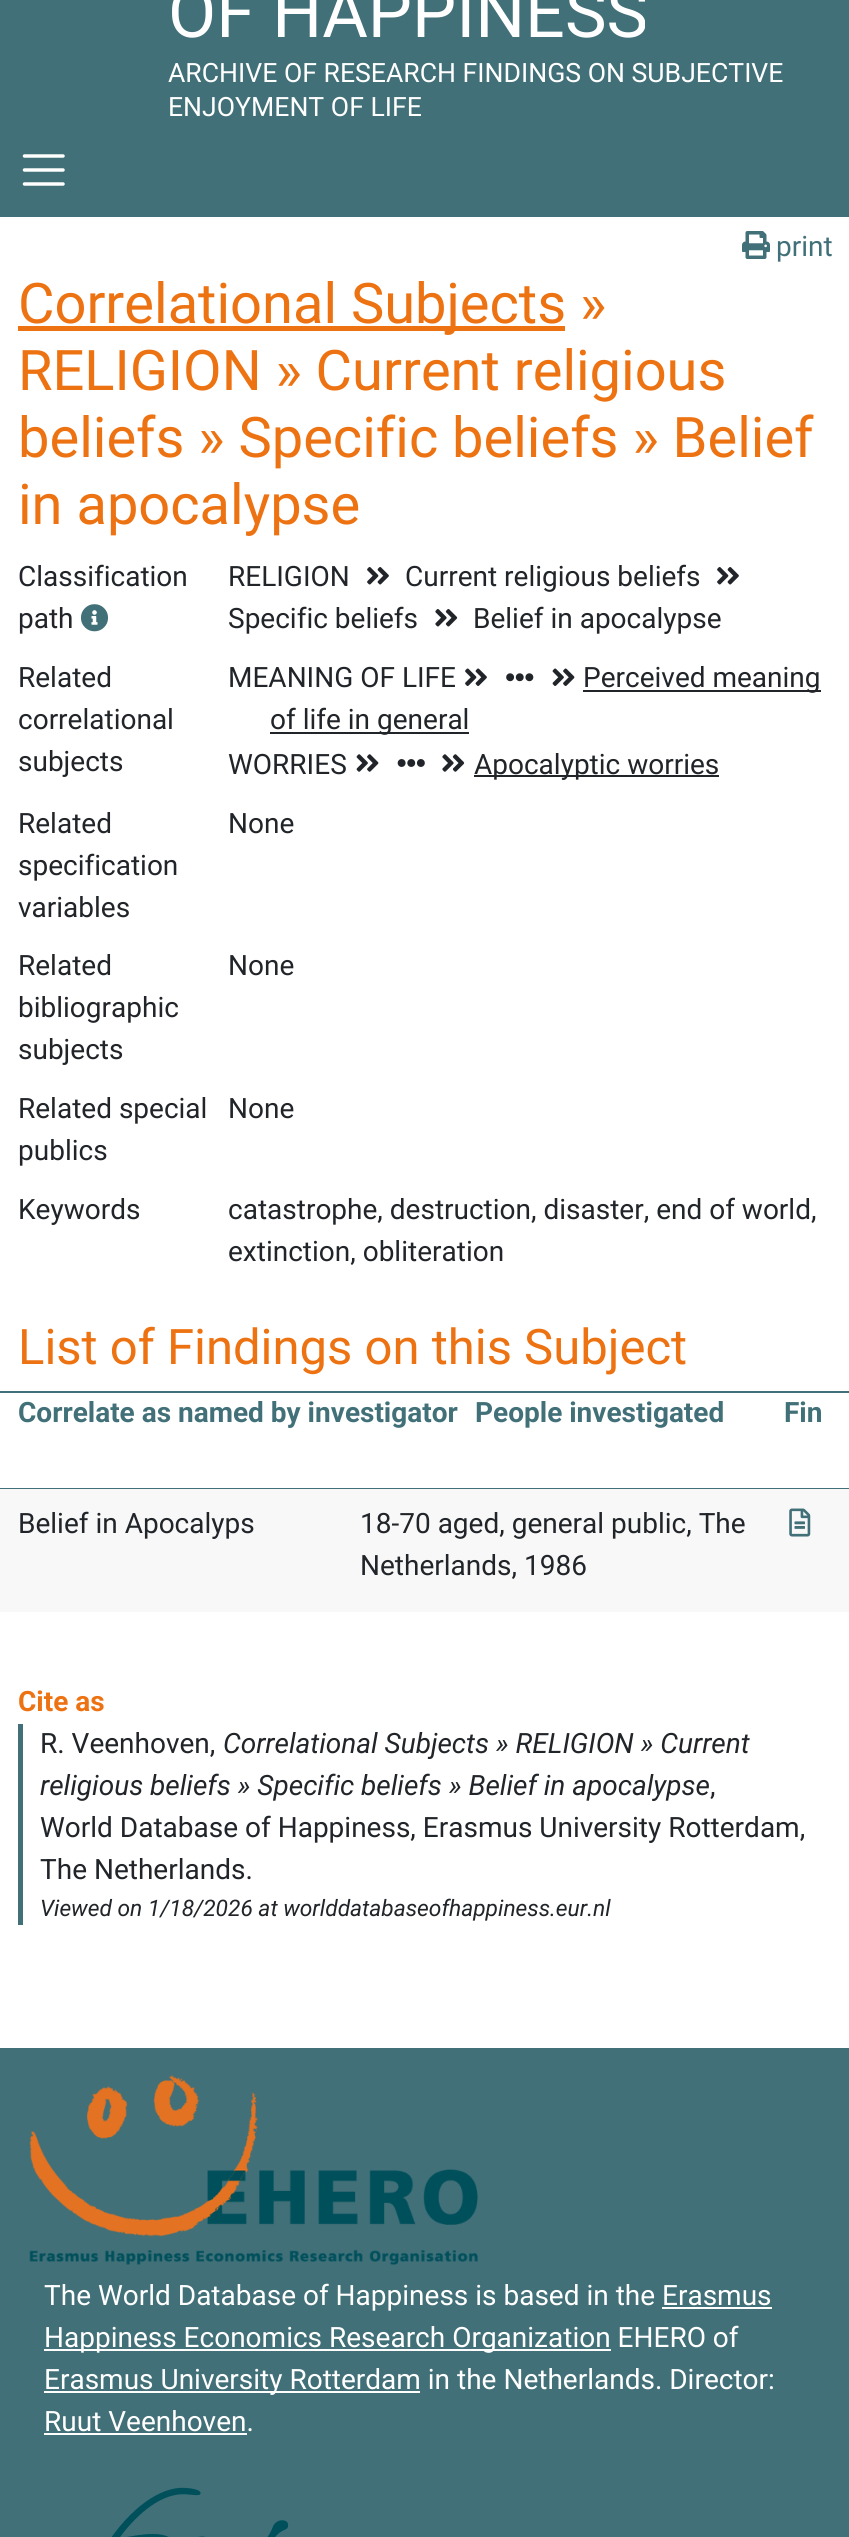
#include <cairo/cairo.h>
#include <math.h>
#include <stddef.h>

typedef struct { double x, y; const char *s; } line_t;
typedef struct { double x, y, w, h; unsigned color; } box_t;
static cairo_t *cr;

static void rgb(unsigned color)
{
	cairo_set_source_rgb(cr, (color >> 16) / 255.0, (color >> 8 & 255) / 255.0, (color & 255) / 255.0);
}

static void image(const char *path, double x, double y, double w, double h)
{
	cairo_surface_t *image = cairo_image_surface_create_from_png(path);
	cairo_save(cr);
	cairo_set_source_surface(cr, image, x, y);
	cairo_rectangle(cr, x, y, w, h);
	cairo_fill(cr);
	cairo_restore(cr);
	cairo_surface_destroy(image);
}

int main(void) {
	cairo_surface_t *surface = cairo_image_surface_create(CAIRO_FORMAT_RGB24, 849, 2537);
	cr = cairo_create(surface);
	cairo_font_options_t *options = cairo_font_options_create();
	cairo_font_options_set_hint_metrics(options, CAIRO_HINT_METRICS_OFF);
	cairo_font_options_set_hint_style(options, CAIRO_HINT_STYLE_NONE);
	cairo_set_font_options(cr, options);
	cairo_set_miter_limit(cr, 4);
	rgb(0xffffff);
	cairo_paint(cr);
	rgb(0x417078);
	cairo_rectangle(cr, 0, 0, 849, 217);
	cairo_fill(cr);
	cairo_new_path(cr);
	cairo_move_to(cr, 24.5, 156);
	cairo_line_to(cr, 63, 156);
	cairo_move_to(cr, 24.5, 170);
	cairo_line_to(cr, 63, 170);
	cairo_move_to(cr, 24.5, 184);
	cairo_line_to(cr, 63, 184);
	rgb(0xffffff);
	cairo_set_line_width(cr, 3.5);
	cairo_set_line_cap(cr, CAIRO_LINE_CAP_ROUND);
	cairo_stroke(cr);
	image("img/1.png", 742, 231, 28, 28);
	rgb(0xed7212);
	cairo_rectangle(cr, 18, 326, 547, 5);
	cairo_fill(cr);
	image("img/2.png", 80, 604, 29, 28);
	image("img/3.png", 367, 567, 22, 18);
	image("img/3.png", 717, 567, 22, 18);
	image("img/4.png", 435, 609, 23, 18);
	image("img/5.png", 552, 668, 23, 18);
	rgb(0x212529);
	cairo_rectangle(cr, 583, 690, 238, 2);
	cairo_fill(cr);
	cairo_rectangle(cr, 270, 732, 199, 2);
	cairo_fill(cr);
	image("img/6.png", 465, 668, 22, 18);
	image("img/7.png", 506, 673, 28, 9);
	image("img/8.png", 356, 754, 23, 18);
	image("img/9.png", 397, 759, 28, 8);
	image("img/10.png", 442, 754, 23, 18);
	{
		static const box_t items[] = {
			{474, 775, 245, 2, 0x212529},
			{0, 1391, 849, 2, 0x417078},
			{0, 1488, 849, 1, 0x417078},
			{0, 1489, 849, 123, 0xf8f8f8},
		};
		for (size_t i = 0; i < sizeof items / sizeof *items; i++) {
			rgb(items[i].color);
			cairo_rectangle(cr, items[i].x, items[i].y, items[i].w, items[i].h);
			cairo_fill(cr);
		}
	}
	image("img/11.png", 789, 1508, 22, 29);
	rgb(0x417078);
	cairo_rectangle(cr, 18, 1724, 5, 201);
	cairo_fill(cr);
	cairo_rectangle(cr, 0, 2048, 849, 489);
	cairo_fill(cr);
	image("img/12.png", 29, 2075, 449, 190);
	{
		static const box_t items[] = {
			{662, 2307, 110, 2, 0xffffff},
			{44, 2349, 567, 2, 0xffffff},
			{44, 2391, 376, 2, 0xffffff},
			{44, 2433, 203, 2, 0xffffff},
		};
		for (size_t i = 0; i < sizeof items / sizeof *items; i++) {
			rgb(items[i].color);
			cairo_rectangle(cr, items[i].x, items[i].y, items[i].w, items[i].h);
			cairo_fill(cr);
		}
	}
	image("img/13.png", 111, 2487, 178, 50);
	cairo_select_font_face(cr, "Roboto", CAIRO_FONT_SLANT_NORMAL, CAIRO_FONT_WEIGHT_NORMAL);
	cairo_set_font_size(cr, 70);
	cairo_move_to(cr, 168, 37);
	cairo_show_text(cr, "OF HAPPINESS");
	cairo_set_font_size(cr, 26.6);
	cairo_move_to(cr, 168, 82);
	cairo_show_text(cr, "ARCHIVE OF RESEARCH FINDINGS ON SUBJECTIVE");
	cairo_move_to(cr, 168, 116);
	cairo_show_text(cr, "ENJOYMENT OF LIFE");
	cairo_set_font_size(cr, 28);
	rgb(0x417078);
	cairo_move_to(cr, 776, 256);
	cairo_show_text(cr, "print");
	cairo_set_font_size(cr, 56);
	rgb(0xed7212);
	{
		static const line_t items[] = {
			{18, 323, "Correlational Subjects »"},
			{18, 390, "RELIGION » Current religious"},
			{18, 457, "beliefs » Specific beliefs » Belief"},
			{18, 524, "in apocalypse"},
		};
		for (size_t i = 0; i < sizeof items / sizeof *items; i++) {
			cairo_move_to(cr, items[i].x, items[i].y);
			cairo_show_text(cr, items[i].s);
		}
	}
	cairo_set_font_size(cr, 28);
	rgb(0x212529);
	{
		static const line_t items[] = {
			{18, 586, "Classification"},
			{18, 628, "path"},
			{228, 586, "RELIGION"},
			{405, 586, "Current religious beliefs"},
			{228, 628, "Specific beliefs"},
			{473, 628, "Belief in apocalypse"},
			{18, 687, "Related"},
			{18, 729, "correlational"},
			{18, 771, "subjects"},
			{228, 687, "MEANING OF LIFE"},
			{583, 687, "Perceived meaning"},
			{270, 729, "of life in general"},
			{228, 774, "WORRIES"},
			{474, 774, "Apocalyptic worries"},
			{18, 833, "Related"},
			{18, 875, "specification"},
			{18, 917, "variables"},
			{228, 833, "None"},
			{18, 975, "Related"},
			{18, 1017, "bibliographic"},
			{18, 1059, "subjects"},
			{228, 975, "None"},
			{18, 1118, "Related special"},
			{18, 1160, "publics"},
			{228, 1118, "None"},
			{18, 1219, "Keywords"},
			{228, 1219, "catastrophe, destruction, disaster, end of world,"},
			{228, 1261, "extinction, obliteration"},
		};
		for (size_t i = 0; i < sizeof items / sizeof *items; i++) {
			cairo_move_to(cr, items[i].x, items[i].y);
			cairo_show_text(cr, items[i].s);
		}
	}
	cairo_set_font_size(cr, 49);
	rgb(0xed7212);
	cairo_move_to(cr, 18, 1364);
	cairo_show_text(cr, "List of Findings on this Subject");
	cairo_select_font_face(cr, "Roboto", CAIRO_FONT_SLANT_NORMAL, CAIRO_FONT_WEIGHT_BOLD);
	cairo_set_font_size(cr, 28);
	rgb(0x417078);
	{
		static const line_t items[] = {
			{18, 1422, "Correlate as named by investigator"},
			{475, 1422, "People investigated"},
			{784, 1422, "Fin"},
		};
		for (size_t i = 0; i < sizeof items / sizeof *items; i++) {
			cairo_move_to(cr, items[i].x, items[i].y);
			cairo_show_text(cr, items[i].s);
		}
	}
	cairo_select_font_face(cr, "Roboto", CAIRO_FONT_SLANT_NORMAL, CAIRO_FONT_WEIGHT_NORMAL);
	rgb(0x212529);
	{
		static const line_t items[] = {
			{18, 1533, "Belief in Apocalyps"},
			{360, 1533, "18-70 aged, general public, The"},
			{360, 1575, "Netherlands, 1986"},
		};
		for (size_t i = 0; i < sizeof items / sizeof *items; i++) {
			cairo_move_to(cr, items[i].x, items[i].y);
			cairo_show_text(cr, items[i].s);
		}
	}
	cairo_select_font_face(cr, "Roboto", CAIRO_FONT_SLANT_NORMAL, CAIRO_FONT_WEIGHT_BOLD);
	rgb(0xed7212);
	cairo_move_to(cr, 18, 1711);
	cairo_show_text(cr, "Cite as");
	cairo_select_font_face(cr, "Roboto", CAIRO_FONT_SLANT_NORMAL, CAIRO_FONT_WEIGHT_NORMAL);
	rgb(0x212529);
	cairo_move_to(cr, 40, 1753);
	cairo_show_text(cr, "R. Veenhoven,");
	cairo_select_font_face(cr, "Roboto", CAIRO_FONT_SLANT_ITALIC, CAIRO_FONT_WEIGHT_NORMAL);
	cairo_move_to(cr, 223, 1753);
	cairo_show_text(cr, "Correlational Subjects » RELIGION » Current");
	cairo_move_to(cr, 40, 1795);
	cairo_show_text(cr, "religious beliefs » Specific beliefs » Belief in apocalypse");
	cairo_select_font_face(cr, "Roboto", CAIRO_FONT_SLANT_NORMAL, CAIRO_FONT_WEIGHT_NORMAL);
	{
		static const line_t items[] = {
			{710, 1795, ","},
			{40, 1837, "World Database of Happiness, Erasmus University Rotterdam,"},
			{40, 1879, "The Netherlands."},
		};
		for (size_t i = 0; i < sizeof items / sizeof *items; i++) {
			cairo_move_to(cr, items[i].x, items[i].y);
			cairo_show_text(cr, items[i].s);
		}
	}
	cairo_select_font_face(cr, "Roboto", CAIRO_FONT_SLANT_ITALIC, CAIRO_FONT_WEIGHT_NORMAL);
	cairo_set_font_size(cr, 22.75);
	cairo_move_to(cr, 40, 1916);
	cairo_show_text(cr, "Viewed on 1/18/2026 at worlddatabaseofhappiness.eur.nl");
	cairo_select_font_face(cr, "Roboto", CAIRO_FONT_SLANT_NORMAL, CAIRO_FONT_WEIGHT_NORMAL);
	cairo_set_font_size(cr, 28);
	rgb(0xffffff);
	{
		static const line_t items[] = {
			{44, 2305, "The World Database of Happiness is based in the Erasmus"},
			{44, 2347, "Happiness Economics Research Organization EHERO of"},
			{44, 2389, "Erasmus University Rotterdam in the Netherlands. Director:"},
			{44, 2431, "Ruut Veenhoven."},
		};
		for (size_t i = 0; i < sizeof items / sizeof *items; i++) {
			cairo_move_to(cr, items[i].x, items[i].y);
			cairo_show_text(cr, items[i].s);
		}
	}
	cairo_surface_write_to_png(surface, "page.png");
	cairo_font_options_destroy(options);
	cairo_destroy(cr);
	cairo_surface_destroy(surface);
	return 0;
}
